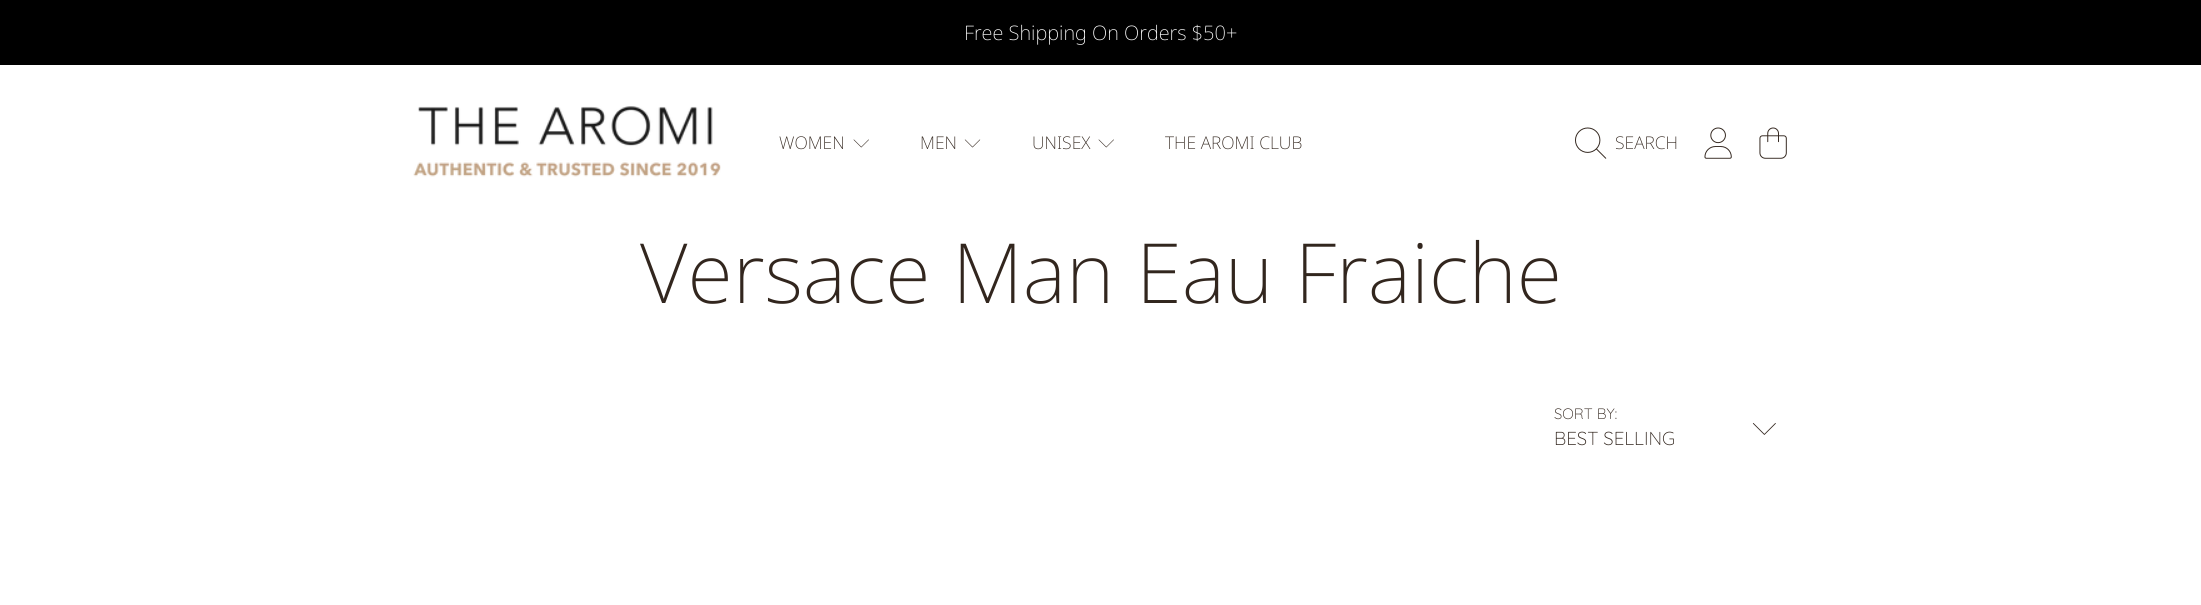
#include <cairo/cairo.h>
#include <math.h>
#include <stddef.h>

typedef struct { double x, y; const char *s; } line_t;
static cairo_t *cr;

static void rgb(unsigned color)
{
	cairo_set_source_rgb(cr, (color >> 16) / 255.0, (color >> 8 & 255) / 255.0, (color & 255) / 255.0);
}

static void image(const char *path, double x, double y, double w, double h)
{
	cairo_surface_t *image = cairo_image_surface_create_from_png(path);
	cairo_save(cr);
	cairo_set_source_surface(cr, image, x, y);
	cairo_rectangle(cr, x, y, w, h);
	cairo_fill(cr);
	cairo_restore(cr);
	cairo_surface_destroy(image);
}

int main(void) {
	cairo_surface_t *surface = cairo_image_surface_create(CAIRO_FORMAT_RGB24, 2201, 605);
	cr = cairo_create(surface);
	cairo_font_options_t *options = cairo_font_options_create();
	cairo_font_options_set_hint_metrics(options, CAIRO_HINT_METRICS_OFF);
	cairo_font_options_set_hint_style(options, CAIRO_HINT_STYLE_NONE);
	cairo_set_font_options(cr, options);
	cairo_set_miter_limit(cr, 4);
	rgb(0xffffff);
	cairo_paint(cr);
	rgb(0x000000);
	cairo_rectangle(cr, 0, 0, 2201, 65);
	cairo_fill(cr);
	image("img/1.png", 413, 106, 308, 71);
	image("img/2.png", 853, 139, 16, 9);
	image("img/3.png", 964, 139, 17, 9);
	image("img/2.png", 1098, 139, 16, 9);
	image("img/4.png", 1575, 127, 32, 32);
	image("img/5.png", 1704, 127, 28, 32);
	image("img/6.png", 1759, 127, 28, 32);
	image("img/7.png", 1752, 423, 24, 12);
	cairo_select_font_face(cr, "Noto Sans ExtraLight", CAIRO_FONT_SLANT_NORMAL, CAIRO_FONT_WEIGHT_NORMAL);
	cairo_set_font_size(cr, 20);
	rgb(0xffffff);
	cairo_move_to(cr, 964, 40);
	cairo_show_text(cr, "Free Shipping On Orders $50+");
	cairo_set_font_size(cr, 17.5);
	rgb(0x32261e);
	{
		static const line_t items[] = {
			{779, 149, "WOMEN"},
			{920, 149, "MEN"},
			{1032, 149, "UNISEX"},
			{1165, 149, "THE AROMI CLUB"},
			{1615, 149, "SEARCH"},
		};
		for (size_t i = 0; i < sizeof items / sizeof *items; i++) {
			cairo_move_to(cr, items[i].x, items[i].y);
			cairo_show_text(cr, items[i].s);
		}
	}
	cairo_set_font_size(cr, 83);
	cairo_move_to(cr, 640, 303);
	cairo_show_text(cr, "Versace Man Eau Fraiche");
	cairo_select_font_face(cr, "Quicksand Light", CAIRO_FONT_SLANT_NORMAL, CAIRO_FONT_WEIGHT_NORMAL);
	cairo_set_font_size(cr, 15);
	cairo_move_to(cr, 1554, 419);
	cairo_show_text(cr, "SORT BY:");
	cairo_set_font_size(cr, 18.75);
	cairo_move_to(cr, 1554, 445);
	cairo_show_text(cr, "BEST SELLING");
	cairo_surface_write_to_png(surface, "page.png");
	cairo_font_options_destroy(options);
	cairo_destroy(cr);
	cairo_surface_destroy(surface);
	return 0;
}
